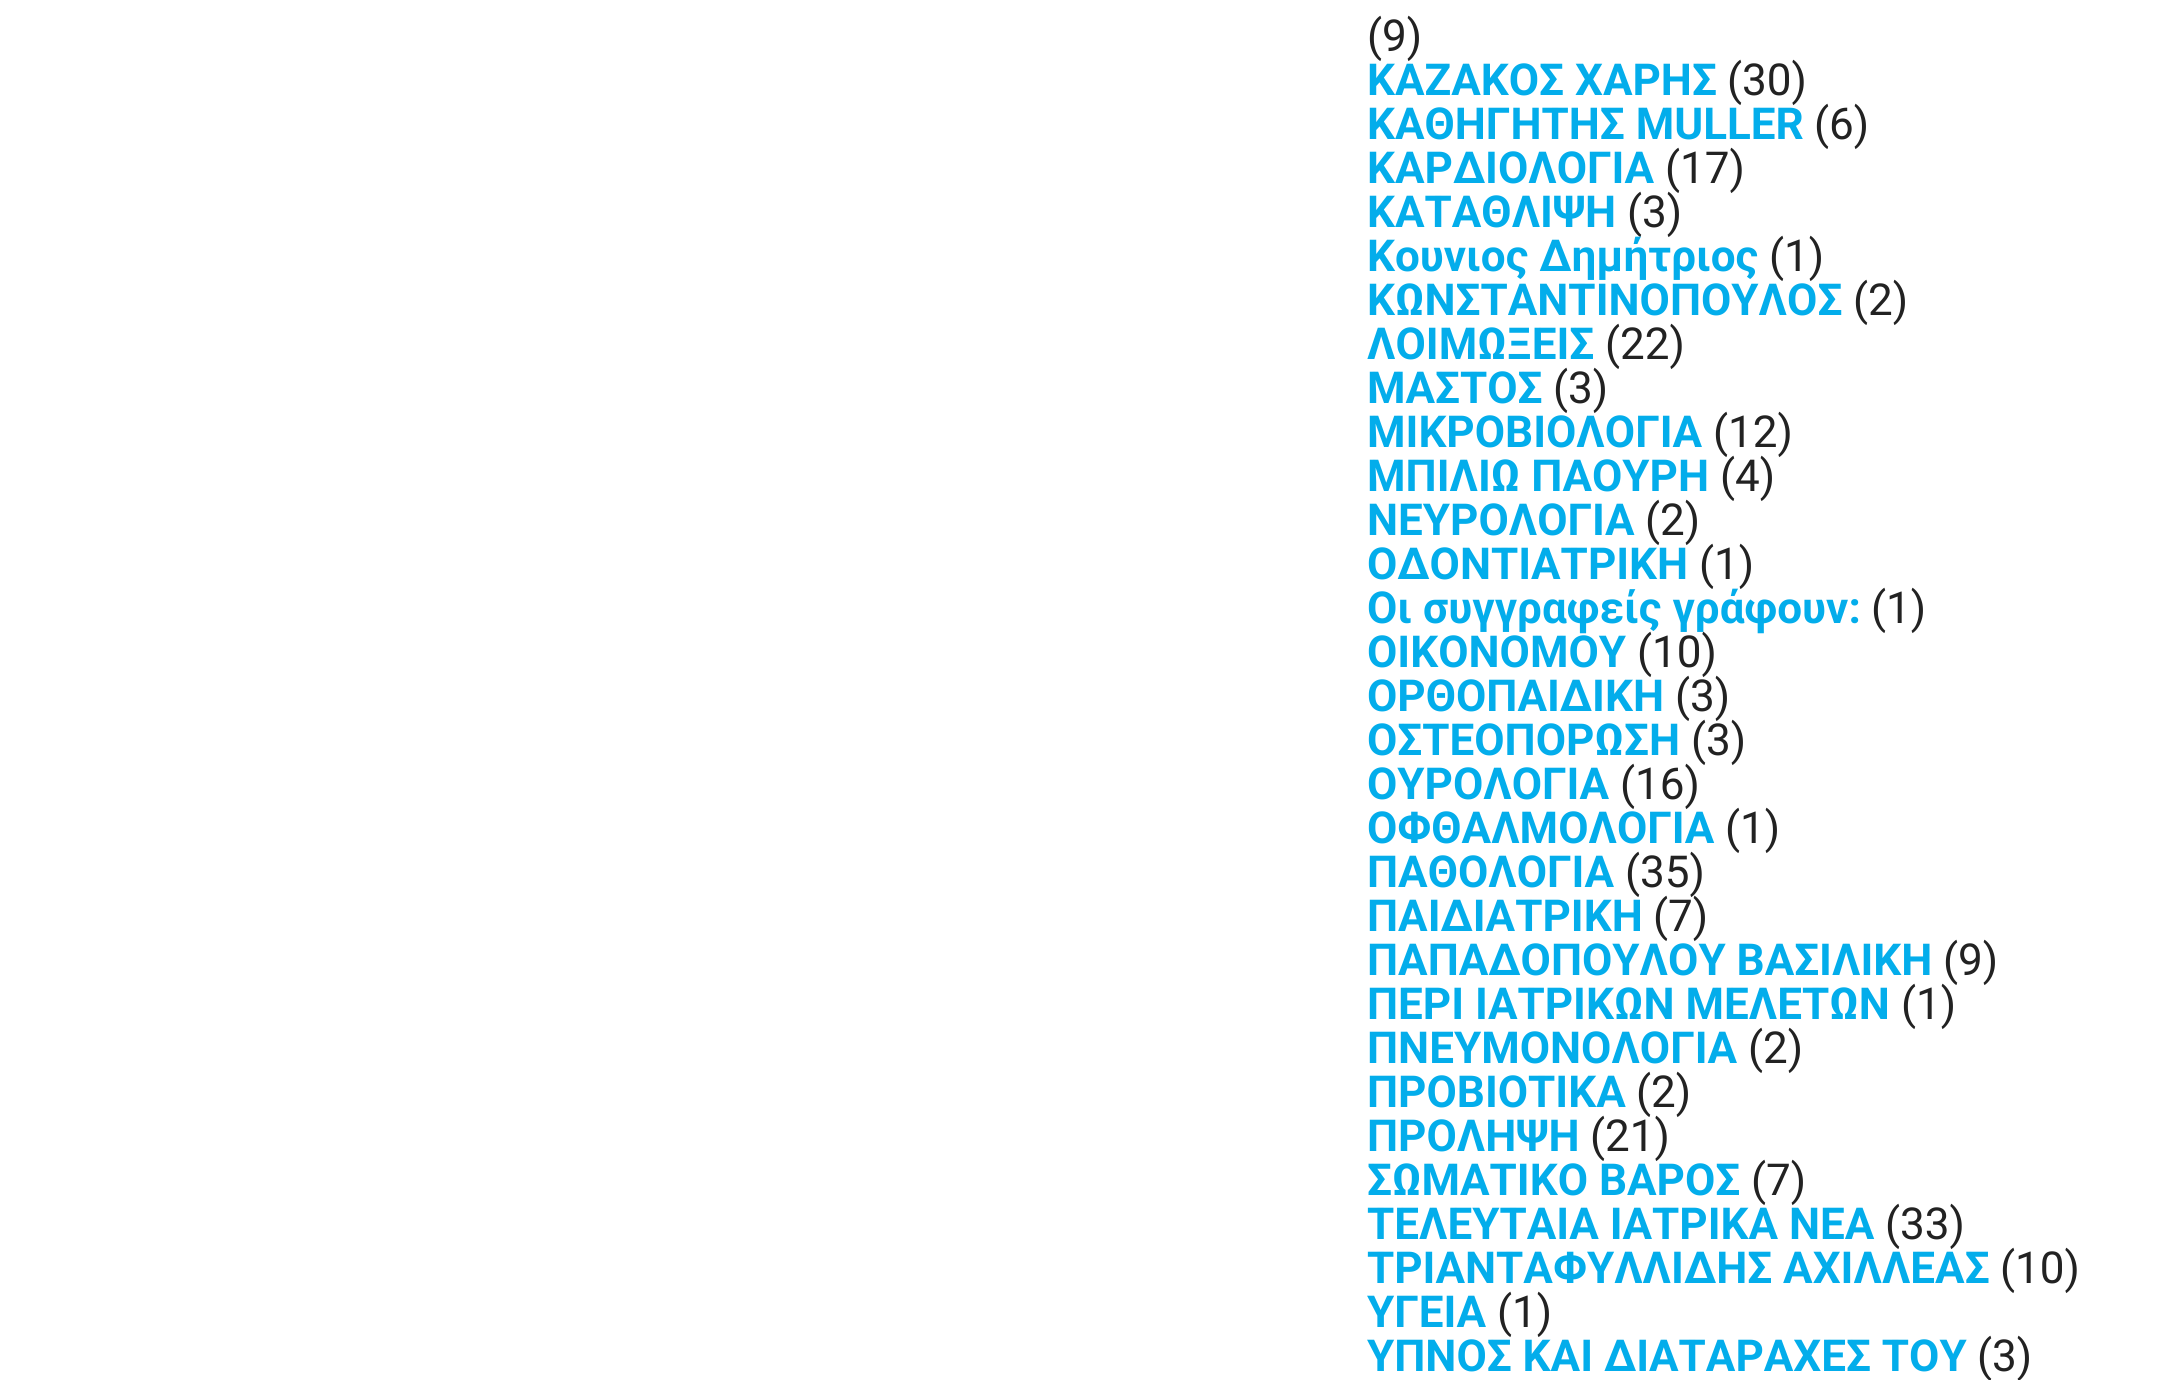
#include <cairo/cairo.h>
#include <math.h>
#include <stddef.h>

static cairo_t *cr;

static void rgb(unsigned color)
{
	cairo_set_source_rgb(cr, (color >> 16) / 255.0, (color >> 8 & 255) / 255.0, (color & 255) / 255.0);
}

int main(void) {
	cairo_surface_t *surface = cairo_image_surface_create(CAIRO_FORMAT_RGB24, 2178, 1380);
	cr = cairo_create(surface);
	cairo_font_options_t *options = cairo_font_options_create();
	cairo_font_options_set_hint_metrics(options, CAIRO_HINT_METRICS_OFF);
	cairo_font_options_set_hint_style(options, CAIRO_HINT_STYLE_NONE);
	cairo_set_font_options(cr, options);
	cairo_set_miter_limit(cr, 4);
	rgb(0xffffff);
	cairo_paint(cr);
	cairo_select_font_face(cr, "Roboto", CAIRO_FONT_SLANT_NORMAL, CAIRO_FONT_WEIGHT_NORMAL);
	cairo_set_font_size(cr, 44);
	rgb(0x222222);
	cairo_move_to(cr, 1367, 51);
	cairo_show_text(cr, "(9)");
	cairo_select_font_face(cr, "Roboto", CAIRO_FONT_SLANT_NORMAL, CAIRO_FONT_WEIGHT_BOLD);
	rgb(0x03adeb);
	cairo_move_to(cr, 1367, 95);
	cairo_show_text(cr, "ΚΑΖΑΚΟΣ ΧΑΡΗΣ");
	cairo_select_font_face(cr, "Roboto", CAIRO_FONT_SLANT_NORMAL, CAIRO_FONT_WEIGHT_NORMAL);
	rgb(0x222222);
	cairo_move_to(cr, 1727, 95);
	cairo_show_text(cr, "(30)");
	cairo_select_font_face(cr, "Roboto", CAIRO_FONT_SLANT_NORMAL, CAIRO_FONT_WEIGHT_BOLD);
	rgb(0x03adeb);
	cairo_move_to(cr, 1367, 139);
	cairo_show_text(cr, "ΚΑΘΗΓΗΤΗΣ MULLER");
	cairo_select_font_face(cr, "Roboto", CAIRO_FONT_SLANT_NORMAL, CAIRO_FONT_WEIGHT_NORMAL);
	rgb(0x222222);
	cairo_move_to(cr, 1814, 139);
	cairo_show_text(cr, "(6)");
	cairo_select_font_face(cr, "Roboto", CAIRO_FONT_SLANT_NORMAL, CAIRO_FONT_WEIGHT_BOLD);
	rgb(0x03adeb);
	cairo_move_to(cr, 1367, 183);
	cairo_show_text(cr, "ΚΑΡΔΙΟΛΟΓΙΑ");
	cairo_select_font_face(cr, "Roboto", CAIRO_FONT_SLANT_NORMAL, CAIRO_FONT_WEIGHT_NORMAL);
	rgb(0x222222);
	cairo_move_to(cr, 1665, 183);
	cairo_show_text(cr, "(17)");
	cairo_select_font_face(cr, "Roboto", CAIRO_FONT_SLANT_NORMAL, CAIRO_FONT_WEIGHT_BOLD);
	rgb(0x03adeb);
	cairo_move_to(cr, 1367, 227);
	cairo_show_text(cr, "ΚΑΤΑΘΛΙΨΗ");
	cairo_select_font_face(cr, "Roboto", CAIRO_FONT_SLANT_NORMAL, CAIRO_FONT_WEIGHT_NORMAL);
	rgb(0x222222);
	cairo_move_to(cr, 1627, 227);
	cairo_show_text(cr, "(3)");
	cairo_select_font_face(cr, "Roboto", CAIRO_FONT_SLANT_NORMAL, CAIRO_FONT_WEIGHT_BOLD);
	rgb(0x03adeb);
	cairo_move_to(cr, 1367, 271);
	cairo_show_text(cr, "Κουνιος Δημήτριος");
	cairo_select_font_face(cr, "Roboto", CAIRO_FONT_SLANT_NORMAL, CAIRO_FONT_WEIGHT_NORMAL);
	rgb(0x222222);
	cairo_move_to(cr, 1769, 271);
	cairo_show_text(cr, "(1)");
	cairo_select_font_face(cr, "Roboto", CAIRO_FONT_SLANT_NORMAL, CAIRO_FONT_WEIGHT_BOLD);
	rgb(0x03adeb);
	cairo_move_to(cr, 1367, 315);
	cairo_show_text(cr, "ΚΩΝΣΤΑΝΤΙΝΟΠΟΥΛΟΣ");
	cairo_select_font_face(cr, "Roboto", CAIRO_FONT_SLANT_NORMAL, CAIRO_FONT_WEIGHT_NORMAL);
	rgb(0x222222);
	cairo_move_to(cr, 1853, 315);
	cairo_show_text(cr, "(2)");
	cairo_select_font_face(cr, "Roboto", CAIRO_FONT_SLANT_NORMAL, CAIRO_FONT_WEIGHT_BOLD);
	rgb(0x03adeb);
	cairo_move_to(cr, 1367, 359);
	cairo_show_text(cr, "ΛΟΙΜΩΞΕΙΣ");
	cairo_select_font_face(cr, "Roboto", CAIRO_FONT_SLANT_NORMAL, CAIRO_FONT_WEIGHT_NORMAL);
	rgb(0x222222);
	cairo_move_to(cr, 1605, 359);
	cairo_show_text(cr, "(22)");
	cairo_select_font_face(cr, "Roboto", CAIRO_FONT_SLANT_NORMAL, CAIRO_FONT_WEIGHT_BOLD);
	rgb(0x03adeb);
	cairo_move_to(cr, 1367, 403);
	cairo_show_text(cr, "ΜΑΣΤΟΣ");
	cairo_select_font_face(cr, "Roboto", CAIRO_FONT_SLANT_NORMAL, CAIRO_FONT_WEIGHT_NORMAL);
	rgb(0x222222);
	cairo_move_to(cr, 1553, 403);
	cairo_show_text(cr, "(3)");
	cairo_select_font_face(cr, "Roboto", CAIRO_FONT_SLANT_NORMAL, CAIRO_FONT_WEIGHT_BOLD);
	rgb(0x03adeb);
	cairo_move_to(cr, 1367, 447);
	cairo_show_text(cr, "ΜΙΚΡΟΒΙΟΛΟΓΙΑ");
	cairo_select_font_face(cr, "Roboto", CAIRO_FONT_SLANT_NORMAL, CAIRO_FONT_WEIGHT_NORMAL);
	rgb(0x222222);
	cairo_move_to(cr, 1713, 447);
	cairo_show_text(cr, "(12)");
	cairo_select_font_face(cr, "Roboto", CAIRO_FONT_SLANT_NORMAL, CAIRO_FONT_WEIGHT_BOLD);
	rgb(0x03adeb);
	cairo_move_to(cr, 1367, 491);
	cairo_show_text(cr, "ΜΠΙΛΙΩ ΠΑΟΥΡΗ");
	cairo_select_font_face(cr, "Roboto", CAIRO_FONT_SLANT_NORMAL, CAIRO_FONT_WEIGHT_NORMAL);
	rgb(0x222222);
	cairo_move_to(cr, 1720, 491);
	cairo_show_text(cr, "(4)");
	cairo_select_font_face(cr, "Roboto", CAIRO_FONT_SLANT_NORMAL, CAIRO_FONT_WEIGHT_BOLD);
	rgb(0x03adeb);
	cairo_move_to(cr, 1367, 535);
	cairo_show_text(cr, "ΝΕΥΡΟΛΟΓΙΑ");
	cairo_select_font_face(cr, "Roboto", CAIRO_FONT_SLANT_NORMAL, CAIRO_FONT_WEIGHT_NORMAL);
	rgb(0x222222);
	cairo_move_to(cr, 1645, 535);
	cairo_show_text(cr, "(2)");
	cairo_select_font_face(cr, "Roboto", CAIRO_FONT_SLANT_NORMAL, CAIRO_FONT_WEIGHT_BOLD);
	rgb(0x03adeb);
	cairo_move_to(cr, 1367, 579);
	cairo_show_text(cr, "ΟΔΟΝΤΙΑΤΡΙΚΗ");
	cairo_select_font_face(cr, "Roboto", CAIRO_FONT_SLANT_NORMAL, CAIRO_FONT_WEIGHT_NORMAL);
	rgb(0x222222);
	cairo_move_to(cr, 1699, 579);
	cairo_show_text(cr, "(1)");
	cairo_select_font_face(cr, "Roboto", CAIRO_FONT_SLANT_NORMAL, CAIRO_FONT_WEIGHT_BOLD);
	rgb(0x03adeb);
	cairo_move_to(cr, 1367, 623);
	cairo_show_text(cr, "Οι συγγραφείς γράφουν:");
	cairo_select_font_face(cr, "Roboto", CAIRO_FONT_SLANT_NORMAL, CAIRO_FONT_WEIGHT_NORMAL);
	rgb(0x222222);
	cairo_move_to(cr, 1871, 623);
	cairo_show_text(cr, "(1)");
	cairo_select_font_face(cr, "Roboto", CAIRO_FONT_SLANT_NORMAL, CAIRO_FONT_WEIGHT_BOLD);
	rgb(0x03adeb);
	cairo_move_to(cr, 1367, 667);
	cairo_show_text(cr, "ΟΙΚΟΝΟΜΟΥ");
	cairo_select_font_face(cr, "Roboto", CAIRO_FONT_SLANT_NORMAL, CAIRO_FONT_WEIGHT_NORMAL);
	rgb(0x222222);
	cairo_move_to(cr, 1637, 667);
	cairo_show_text(cr, "(10)");
	cairo_select_font_face(cr, "Roboto", CAIRO_FONT_SLANT_NORMAL, CAIRO_FONT_WEIGHT_BOLD);
	rgb(0x03adeb);
	cairo_move_to(cr, 1367, 711);
	cairo_show_text(cr, "ΟΡΘΟΠΑΙΔΙΚΗ");
	cairo_select_font_face(cr, "Roboto", CAIRO_FONT_SLANT_NORMAL, CAIRO_FONT_WEIGHT_NORMAL);
	rgb(0x222222);
	cairo_move_to(cr, 1675, 711);
	cairo_show_text(cr, "(3)");
	cairo_select_font_face(cr, "Roboto", CAIRO_FONT_SLANT_NORMAL, CAIRO_FONT_WEIGHT_BOLD);
	rgb(0x03adeb);
	cairo_move_to(cr, 1367, 755);
	cairo_show_text(cr, "ΟΣΤΕΟΠΟΡΩΣΗ");
	cairo_select_font_face(cr, "Roboto", CAIRO_FONT_SLANT_NORMAL, CAIRO_FONT_WEIGHT_NORMAL);
	rgb(0x222222);
	cairo_move_to(cr, 1691, 755);
	cairo_show_text(cr, "(3)");
	cairo_select_font_face(cr, "Roboto", CAIRO_FONT_SLANT_NORMAL, CAIRO_FONT_WEIGHT_BOLD);
	rgb(0x03adeb);
	cairo_move_to(cr, 1367, 799);
	cairo_show_text(cr, "ΟΥΡΟΛΟΓΙΑ");
	cairo_select_font_face(cr, "Roboto", CAIRO_FONT_SLANT_NORMAL, CAIRO_FONT_WEIGHT_NORMAL);
	rgb(0x222222);
	cairo_move_to(cr, 1620, 799);
	cairo_show_text(cr, "(16)");
	cairo_select_font_face(cr, "Roboto", CAIRO_FONT_SLANT_NORMAL, CAIRO_FONT_WEIGHT_BOLD);
	rgb(0x03adeb);
	cairo_move_to(cr, 1367, 843);
	cairo_show_text(cr, "ΟΦΘΑΛΜΟΛΟΓΙΑ");
	cairo_select_font_face(cr, "Roboto", CAIRO_FONT_SLANT_NORMAL, CAIRO_FONT_WEIGHT_NORMAL);
	rgb(0x222222);
	cairo_move_to(cr, 1725, 843);
	cairo_show_text(cr, "(1)");
	cairo_select_font_face(cr, "Roboto", CAIRO_FONT_SLANT_NORMAL, CAIRO_FONT_WEIGHT_BOLD);
	rgb(0x03adeb);
	cairo_move_to(cr, 1367, 887);
	cairo_show_text(cr, "ΠΑΘΟΛΟΓΙΑ");
	cairo_select_font_face(cr, "Roboto", CAIRO_FONT_SLANT_NORMAL, CAIRO_FONT_WEIGHT_NORMAL);
	rgb(0x222222);
	cairo_move_to(cr, 1625, 887);
	cairo_show_text(cr, "(35)");
	cairo_select_font_face(cr, "Roboto", CAIRO_FONT_SLANT_NORMAL, CAIRO_FONT_WEIGHT_BOLD);
	rgb(0x03adeb);
	cairo_move_to(cr, 1367, 931);
	cairo_show_text(cr, "ΠΑΙΔΙΑΤΡΙΚΗ");
	cairo_select_font_face(cr, "Roboto", CAIRO_FONT_SLANT_NORMAL, CAIRO_FONT_WEIGHT_NORMAL);
	rgb(0x222222);
	cairo_move_to(cr, 1653, 931);
	cairo_show_text(cr, "(7)");
	cairo_select_font_face(cr, "Roboto", CAIRO_FONT_SLANT_NORMAL, CAIRO_FONT_WEIGHT_BOLD);
	rgb(0x03adeb);
	cairo_move_to(cr, 1367, 975);
	cairo_show_text(cr, "ΠΑΠΑΔΟΠΟΥΛΟΥ ΒΑΣΙΛΙΚΗ");
	cairo_select_font_face(cr, "Roboto", CAIRO_FONT_SLANT_NORMAL, CAIRO_FONT_WEIGHT_NORMAL);
	rgb(0x222222);
	cairo_move_to(cr, 1943, 975);
	cairo_show_text(cr, "(9)");
	cairo_select_font_face(cr, "Roboto", CAIRO_FONT_SLANT_NORMAL, CAIRO_FONT_WEIGHT_BOLD);
	rgb(0x03adeb);
	cairo_move_to(cr, 1367, 1019);
	cairo_show_text(cr, "ΠΕΡΙ ΙΑΤΡΙΚΩΝ ΜΕΛΕΤΩΝ");
	cairo_select_font_face(cr, "Roboto", CAIRO_FONT_SLANT_NORMAL, CAIRO_FONT_WEIGHT_NORMAL);
	rgb(0x222222);
	cairo_move_to(cr, 1901, 1019);
	cairo_show_text(cr, "(1)");
	cairo_select_font_face(cr, "Roboto", CAIRO_FONT_SLANT_NORMAL, CAIRO_FONT_WEIGHT_BOLD);
	rgb(0x03adeb);
	cairo_move_to(cr, 1367, 1063);
	cairo_show_text(cr, "ΠΝΕΥΜΟΝΟΛΟΓΙΑ");
	cairo_select_font_face(cr, "Roboto", CAIRO_FONT_SLANT_NORMAL, CAIRO_FONT_WEIGHT_NORMAL);
	rgb(0x222222);
	cairo_move_to(cr, 1748, 1063);
	cairo_show_text(cr, "(2)");
	cairo_select_font_face(cr, "Roboto", CAIRO_FONT_SLANT_NORMAL, CAIRO_FONT_WEIGHT_BOLD);
	rgb(0x03adeb);
	cairo_move_to(cr, 1367, 1107);
	cairo_show_text(cr, "ΠΡΟΒΙΟΤΙΚΑ");
	cairo_select_font_face(cr, "Roboto", CAIRO_FONT_SLANT_NORMAL, CAIRO_FONT_WEIGHT_NORMAL);
	rgb(0x222222);
	cairo_move_to(cr, 1636, 1107);
	cairo_show_text(cr, "(2)");
	cairo_select_font_face(cr, "Roboto", CAIRO_FONT_SLANT_NORMAL, CAIRO_FONT_WEIGHT_BOLD);
	rgb(0x03adeb);
	cairo_move_to(cr, 1367, 1151);
	cairo_show_text(cr, "ΠΡΟΛΗΨΗ");
	cairo_select_font_face(cr, "Roboto", CAIRO_FONT_SLANT_NORMAL, CAIRO_FONT_WEIGHT_NORMAL);
	rgb(0x222222);
	cairo_move_to(cr, 1590, 1151);
	cairo_show_text(cr, "(21)");
	cairo_select_font_face(cr, "Roboto", CAIRO_FONT_SLANT_NORMAL, CAIRO_FONT_WEIGHT_BOLD);
	rgb(0x03adeb);
	cairo_move_to(cr, 1367, 1195);
	cairo_show_text(cr, "ΣΩΜΑΤΙΚΟ ΒΑΡΟΣ");
	cairo_select_font_face(cr, "Roboto", CAIRO_FONT_SLANT_NORMAL, CAIRO_FONT_WEIGHT_NORMAL);
	rgb(0x222222);
	cairo_move_to(cr, 1751, 1195);
	cairo_show_text(cr, "(7)");
	cairo_select_font_face(cr, "Roboto", CAIRO_FONT_SLANT_NORMAL, CAIRO_FONT_WEIGHT_BOLD);
	rgb(0x03adeb);
	cairo_move_to(cr, 1367, 1239);
	cairo_show_text(cr, "ΤΕΛΕΥΤΑΙΑ ΙΑΤΡΙΚΑ ΝΕΑ");
	cairo_select_font_face(cr, "Roboto", CAIRO_FONT_SLANT_NORMAL, CAIRO_FONT_WEIGHT_NORMAL);
	rgb(0x222222);
	cairo_move_to(cr, 1885, 1239);
	cairo_show_text(cr, "(33)");
	cairo_select_font_face(cr, "Roboto", CAIRO_FONT_SLANT_NORMAL, CAIRO_FONT_WEIGHT_BOLD);
	rgb(0x03adeb);
	cairo_move_to(cr, 1367, 1283);
	cairo_show_text(cr, "ΤΡΙΑΝΤΑΦΥΛΛΙΔΗΣ ΑΧΙΛΛΕΑΣ");
	cairo_select_font_face(cr, "Roboto", CAIRO_FONT_SLANT_NORMAL, CAIRO_FONT_WEIGHT_NORMAL);
	rgb(0x222222);
	cairo_move_to(cr, 2000, 1283);
	cairo_show_text(cr, "(10)");
	cairo_select_font_face(cr, "Roboto", CAIRO_FONT_SLANT_NORMAL, CAIRO_FONT_WEIGHT_BOLD);
	rgb(0x03adeb);
	cairo_move_to(cr, 1367, 1327);
	cairo_show_text(cr, "ΥΓΕΙΑ");
	cairo_select_font_face(cr, "Roboto", CAIRO_FONT_SLANT_NORMAL, CAIRO_FONT_WEIGHT_NORMAL);
	rgb(0x222222);
	cairo_move_to(cr, 1497, 1327);
	cairo_show_text(cr, "(1)");
	cairo_select_font_face(cr, "Roboto", CAIRO_FONT_SLANT_NORMAL, CAIRO_FONT_WEIGHT_BOLD);
	rgb(0x03adeb);
	cairo_move_to(cr, 1367, 1371);
	cairo_show_text(cr, "ΥΠΝΟΣ ΚΑΙ ΔΙΑΤΑΡΑΧΕΣ ΤΟΥ");
	cairo_select_font_face(cr, "Roboto", CAIRO_FONT_SLANT_NORMAL, CAIRO_FONT_WEIGHT_NORMAL);
	rgb(0x222222);
	cairo_move_to(cr, 1977, 1371);
	cairo_show_text(cr, "(3)");
	cairo_surface_write_to_png(surface, "page.png");
	cairo_font_options_destroy(options);
	cairo_destroy(cr);
	cairo_surface_destroy(surface);
	return 0;
}
